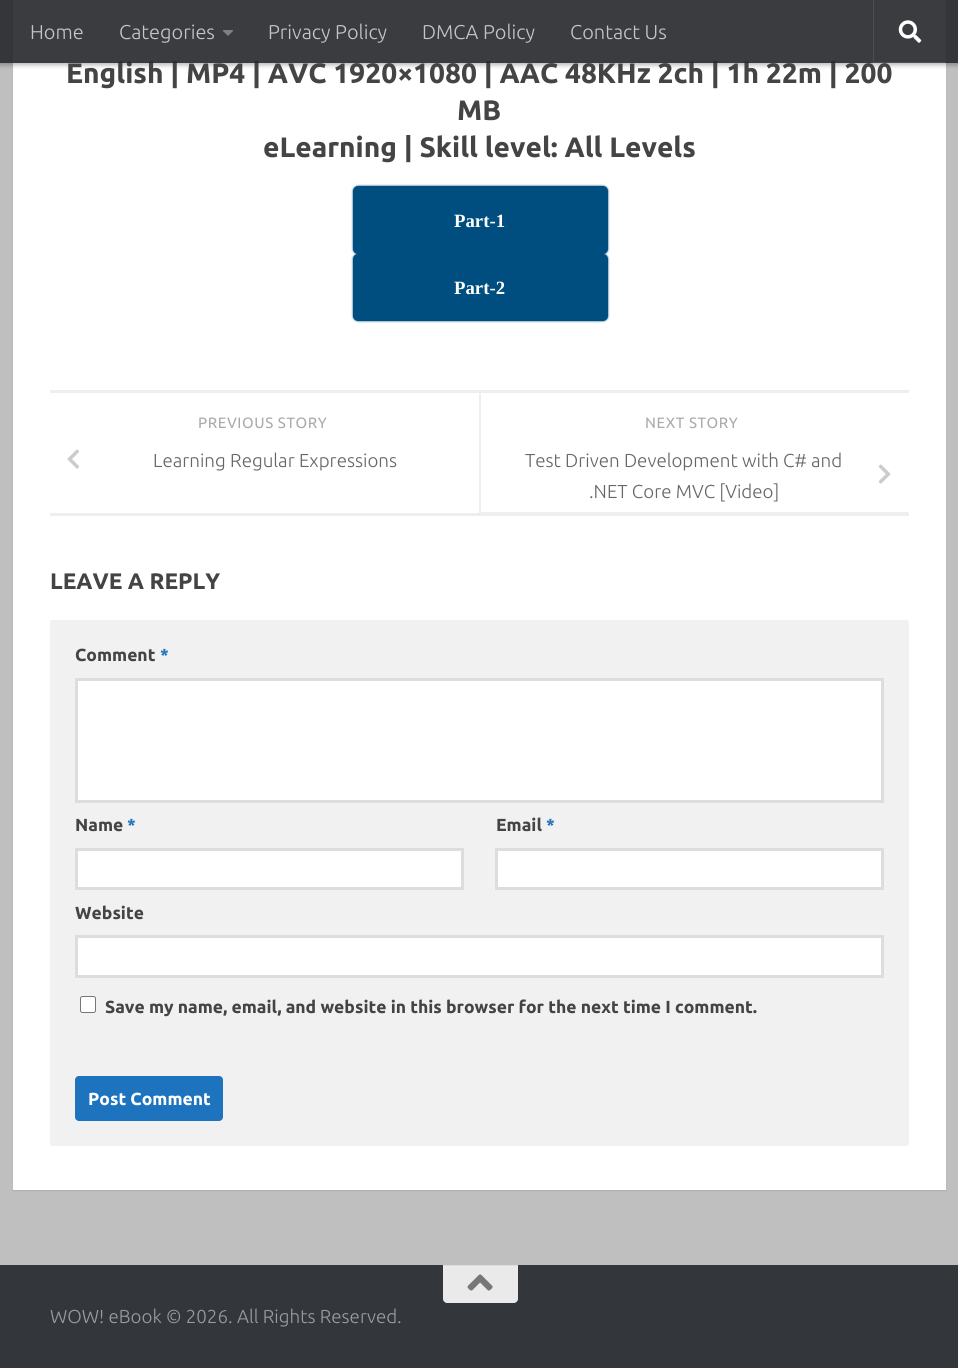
#include <cairo/cairo.h>
#include <math.h>
#include <stddef.h>

typedef struct { double x, y; const char *s; } line_t;
static cairo_t *cr;

static void rgb(unsigned color)
{
	cairo_set_source_rgb(cr, (color >> 16) / 255.0, (color >> 8 & 255) / 255.0, (color & 255) / 255.0);
}

static void tracked(double x, double y, const char *s, double letter, double word)
{
	cairo_move_to(cr, x, y);
	while (*s) {
		char ch[5] = {0};
		int n = 0;
		do ch[n++] = *s++; while ((*s & 0xC0) == 0x80);
		cairo_show_text(cr, ch);
		cairo_rel_move_to(cr, letter + word * (*ch == ' '), 0);
	}
}

static void rrect(double x, double y, double w, double h, double r)
{
	cairo_new_sub_path(cr);
	cairo_arc(cr, x + w - r, y + h - r, r, 0, M_PI / 2);
	cairo_arc(cr, x + r, y + h - r, r, M_PI / 2, M_PI);
	cairo_arc(cr, x + r, y + r, r, M_PI, 1.5 * M_PI);
	cairo_arc(cr, x + w - r, y + r, r, 1.5 * M_PI, 2 * M_PI);
	cairo_close_path(cr);
}

static void soft_shadow(double x, double y, double w, double h, double r, double blur, double alpha)
{
	cairo_push_group_with_content(cr, CAIRO_CONTENT_ALPHA);
	cairo_set_operator(cr, CAIRO_OPERATOR_SOURCE);
	for (int i = 15; i >= -15 && fmin(w, h) + blur * i / 3 > 0; i -= 2) {
		double e = blur * i / 6;
		cairo_set_source_rgba(cr, 0, 0, 0, alpha * erfc((i - 1) / 8.5) / 2);
		rrect(x - e, y - e, w + 2 * e, h + 2 * e, fmax(0, fmin(r + e + blur * .6, fmin(w, h) / 2 + e)));
		cairo_fill(cr);
	}
	cairo_pattern_t *soft = cairo_pop_group(cr);
	cairo_mask(cr, soft);
	cairo_pattern_destroy(soft);
}

static void image(const char *path, double x, double y, double w, double h)
{
	cairo_surface_t *image = cairo_image_surface_create_from_png(path);
	cairo_save(cr);
	cairo_set_source_surface(cr, image, x, y);
	cairo_rectangle(cr, x, y, w, h);
	cairo_fill(cr);
	cairo_restore(cr);
	cairo_surface_destroy(image);
}

int main(void) {
	cairo_surface_t *surface = cairo_image_surface_create(CAIRO_FORMAT_RGB24, 958, 1368);
	cr = cairo_create(surface);
	cairo_font_options_t *options = cairo_font_options_create();
	cairo_font_options_set_hint_metrics(options, CAIRO_HINT_METRICS_OFF);
	cairo_font_options_set_hint_style(options, CAIRO_HINT_STYLE_NONE);
	cairo_set_font_options(cr, options);
	cairo_set_miter_limit(cr, 4);
	rgb(0xbfbfbf);
	cairo_paint(cr);
	rgb(0x000000);
	soft_shadow(13, -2, 933, 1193, 0, 0.5, 0.1);
	rgb(0xffffff);
	cairo_rectangle(cr, 13, 0, 933, 1190);
	cairo_fill(cr);
	cairo_save(cr);
	cairo_set_fill_rule(cr, CAIRO_FILL_RULE_EVEN_ODD);
	cairo_new_path(cr);
	cairo_move_to(cr, 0, 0);
	cairo_line_to(cr, 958, 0);
	cairo_line_to(cr, 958, 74);
	cairo_line_to(cr, 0, 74);
	cairo_close_path(cr);
	cairo_move_to(cr, 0, 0);
	cairo_line_to(cr, 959, 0);
	cairo_line_to(cr, 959, 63);
	cairo_line_to(cr, 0, 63);
	cairo_close_path(cr);
	cairo_clip(cr);
	rgb(0x000000);
	soft_shadow(-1, 0, 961, 65, 0, 2.5, 0.3);
	cairo_restore(cr);
	rgb(0x004d80);
	soft_shadow(353, 186, 255, 68, 5, 1, 1);
	rgb(0x004d80);
	rrect(354.5, 187.5, 252, 65, 3.5);
	cairo_fill_preserve(cr);
	cairo_set_line_width(cr, 3);
	cairo_stroke(cr);
	rgb(0x004d80);
	soft_shadow(353, 254, 255, 67, 5, 1, 1);
	rgb(0x004d80);
	rrect(354.5, 255.5, 252, 64, 3.5);
	cairo_fill_preserve(cr);
	cairo_stroke(cr);
	rgb(0xeeeeee);
	cairo_rectangle(cr, 50, 390, 859, 3);
	cairo_fill(cr);
	cairo_rectangle(cr, 50, 513, 859, 3);
	cairo_fill(cr);
	image("img/3.png", 67, 449, 12, 20);
	cairo_new_path(cr);
	cairo_move_to(cr, 479, 393);
	cairo_line_to(cr, 479, 513);
	cairo_line_to(cr, 908, 513);
	cairo_line_to(cr, 908, 512);
	cairo_line_to(cr, 480, 512);
	cairo_line_to(cr, 480, 393);
	cairo_close_path(cr);
	cairo_fill(cr);
	cairo_rectangle(cr, 480, 393, 1, 120);
	cairo_fill(cr);
	image("img/4.png", 878, 464, 13, 20);
	rgb(0xf1f1f1);
	rrect(50, 620, 859, 526, 2.5);
	cairo_fill(cr);
	rgb(0xffffff);
	cairo_rectangle(cr, 76.5, 679.5, 806, 122);
	cairo_fill_preserve(cr);
	rgb(0xdddddd);
	cairo_stroke(cr);
	rgb(0xffffff);
	cairo_rectangle(cr, 76.5, 849.5, 386, 39);
	cairo_fill_preserve(cr);
	rgb(0xdddddd);
	cairo_stroke(cr);
	rgb(0xffffff);
	cairo_rectangle(cr, 496.5, 849.5, 386, 39);
	cairo_fill_preserve(cr);
	rgb(0xdddddd);
	cairo_stroke(cr);
	rgb(0xffffff);
	cairo_rectangle(cr, 76.5, 936.5, 806, 40);
	cairo_fill_preserve(cr);
	rgb(0xdddddd);
	cairo_stroke(cr);
	rgb(0xffffff);
	rrect(80.5, 996.5, 15, 16, 2);
	cairo_fill_preserve(cr);
	rgb(0x767676);
	cairo_set_line_width(cr, 1);
	cairo_stroke(cr);
	rgb(0x1e73be);
	rrect(75, 1076, 148, 45, 4);
	cairo_fill(cr);
	rgb(0x33363b);
	cairo_rectangle(cr, 0, 1265, 958, 103);
	cairo_fill(cr);
	rgb(0xeaeaea);
	cairo_new_path(cr);
	cairo_move_to(cr, 443, 1265);
	cairo_line_to(cr, 518, 1265);
	cairo_line_to(cr, 518, 1299);
	cairo_curve_to(cr, 518, 1301, 516, 1303, 514, 1303);
	cairo_line_to(cr, 447, 1303);
	cairo_curve_to(cr, 445, 1303, 443, 1301, 443, 1299);
	cairo_close_path(cr);
	cairo_fill(cr);
	rgb(0xdedede);
	cairo_rectangle(cr, 443, 1265, 75, 1);
	cairo_fill(cr);
	image("img/5.png", 467, 1274, 26, 17);
	cairo_select_font_face(cr, "Ubuntu", CAIRO_FONT_SLANT_NORMAL, CAIRO_FONT_WEIGHT_BOLD);
	cairo_set_font_size(cr, 28.1);
	rgb(0x444444);
	cairo_move_to(cr, 66, 83);
	cairo_show_text(cr, "English | MP4 | AVC 1920×1080 | AAC 48KHz 2ch | 1h 22m | 200");
	cairo_set_source_rgba(cr, 0.149, 0.153, 0.169, 0.9);
	cairo_rectangle(cr, 0, 0, 958, 63);
	cairo_fill(cr);
	cairo_set_source_rgba(cr, 1, 1, 1, 0.1);
	cairo_new_path(cr);
	cairo_move_to(cr, 873, 0);
	cairo_line_to(cr, 873, 63);
	cairo_line_to(cr, 945, 63);
	cairo_line_to(cr, 945, 62);
	cairo_line_to(cr, 874, 62);
	cairo_line_to(cr, 874, 0);
	cairo_close_path(cr);
	cairo_fill(cr);
	image("img/2.png", 898, 20, 24, 23);
	cairo_select_font_face(cr, "Ubuntu Light", CAIRO_FONT_SLANT_NORMAL, CAIRO_FONT_WEIGHT_NORMAL);
	cairo_set_font_size(cr, 20);
	rgb(0xc4c5c6);
	{
		static const line_t items[] = {
			{570, 39, "Contact Us"},
			{422, 39, "DMCA Policy"},
			{268, 39, "Privacy Policy"},
		};
		for (size_t i = 0; i < sizeof items / sizeof *items; i++) {
			cairo_move_to(cr, items[i].x, items[i].y);
			cairo_show_text(cr, items[i].s);
		}
	}
	image("img/1.png", 223, 30, 10, 6);
	cairo_move_to(cr, 119, 39);
	cairo_show_text(cr, "Categories");
	cairo_move_to(cr, 30, 39);
	cairo_show_text(cr, "Home");
	cairo_select_font_face(cr, "Ubuntu", CAIRO_FONT_SLANT_NORMAL, CAIRO_FONT_WEIGHT_BOLD);
	cairo_set_font_size(cr, 28.1);
	rgb(0x444444);
	cairo_move_to(cr, 457, 120);
	cairo_show_text(cr, "MB");
	cairo_move_to(cr, 263, 157);
	cairo_show_text(cr, "eLearning | Skill level: All Levels");
	cairo_select_font_face(cr, "Liberation Serif", CAIRO_FONT_SLANT_NORMAL, CAIRO_FONT_WEIGHT_BOLD);
	cairo_set_font_size(cr, 18.75);
	rgb(0xffffff);
	cairo_move_to(cr, 454, 227);
	cairo_show_text(cr, "Part-1");
	cairo_move_to(cr, 454, 294);
	cairo_show_text(cr, "Part-2");
	cairo_select_font_face(cr, "Ubuntu", CAIRO_FONT_SLANT_NORMAL, CAIRO_FONT_WEIGHT_NORMAL);
	cairo_set_font_size(cr, 15);
	rgb(0xaaaaaa);
	tracked(198, 428, "PREVIOUS STORY", 0.6, 0);
	cairo_select_font_face(cr, "Ubuntu Light", CAIRO_FONT_SLANT_NORMAL, CAIRO_FONT_WEIGHT_NORMAL);
	cairo_set_font_size(cr, 18.75);
	rgb(0x666666);
	cairo_move_to(cr, 153, 467);
	cairo_show_text(cr, "Learning Regular Expressions");
	cairo_select_font_face(cr, "Ubuntu", CAIRO_FONT_SLANT_NORMAL, CAIRO_FONT_WEIGHT_NORMAL);
	cairo_set_font_size(cr, 15);
	rgb(0xaaaaaa);
	tracked(645, 428, "NEXT STORY", 0.6, 0);
	cairo_select_font_face(cr, "Ubuntu Light", CAIRO_FONT_SLANT_NORMAL, CAIRO_FONT_WEIGHT_NORMAL);
	cairo_set_font_size(cr, 18.75);
	rgb(0x666666);
	cairo_move_to(cr, 525, 467);
	cairo_show_text(cr, "Test Driven Development with C# and");
	cairo_move_to(cr, 589, 498);
	cairo_show_text(cr, ".NET Core MVC [Video]");
	cairo_select_font_face(cr, "Ubuntu", CAIRO_FONT_SLANT_NORMAL, CAIRO_FONT_WEIGHT_BOLD);
	cairo_set_font_size(cr, 22.5);
	rgb(0x444444);
	cairo_move_to(cr, 50, 589);
	cairo_show_text(cr, "LEAVE A REPLY");
	cairo_set_font_size(cr, 17.5);
	cairo_move_to(cr, 75, 661);
	cairo_show_text(cr, "Comment");
	rgb(0x1e73be);
	cairo_move_to(cr, 160, 661);
	cairo_show_text(cr, "*");
	rgb(0x444444);
	cairo_move_to(cr, 75, 831);
	cairo_show_text(cr, "Name");
	rgb(0x1e73be);
	cairo_move_to(cr, 127, 831);
	cairo_show_text(cr, "*");
	rgb(0x444444);
	cairo_move_to(cr, 496, 831);
	cairo_show_text(cr, "Email");
	rgb(0x1e73be);
	cairo_move_to(cr, 546, 831);
	cairo_show_text(cr, "*");
	rgb(0x444444);
	cairo_move_to(cr, 75, 919);
	cairo_show_text(cr, "Website");
	cairo_move_to(cr, 105, 1013);
	cairo_show_text(cr, "Save my name, email, and website in this browser for the next time I comment.");
	rgb(0xffffff);
	cairo_move_to(cr, 88, 1105);
	cairo_show_text(cr, "Post Comment");
	cairo_select_font_face(cr, "Ubuntu Light", CAIRO_FONT_SLANT_NORMAL, CAIRO_FONT_WEIGHT_NORMAL);
	cairo_set_font_size(cr, 18.75);
	rgb(0x999b9d);
	cairo_move_to(cr, 50, 1323);
	cairo_show_text(cr, "WOW! eBook © 2026. All Rights Reserved.");
	cairo_surface_write_to_png(surface, "page.png");
	cairo_font_options_destroy(options);
	cairo_destroy(cr);
	cairo_surface_destroy(surface);
	return 0;
}
